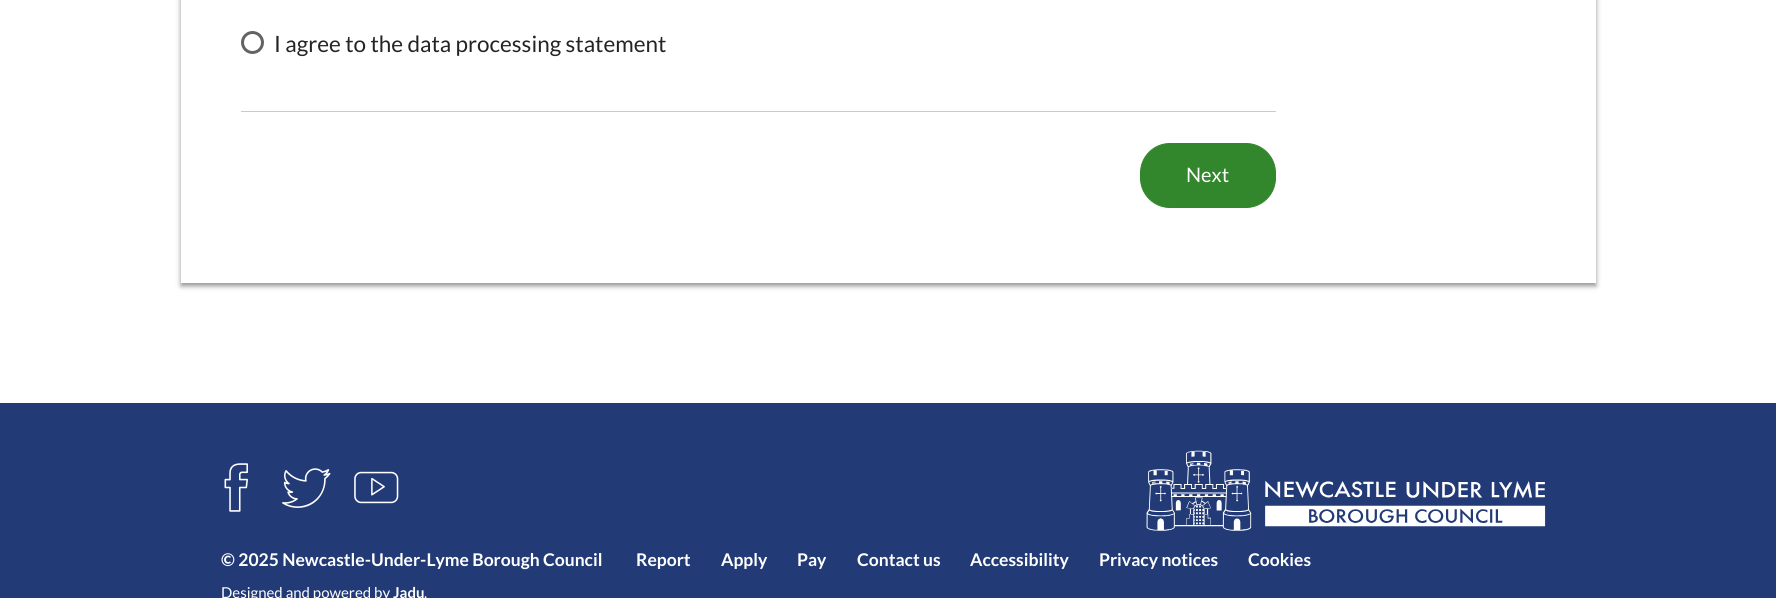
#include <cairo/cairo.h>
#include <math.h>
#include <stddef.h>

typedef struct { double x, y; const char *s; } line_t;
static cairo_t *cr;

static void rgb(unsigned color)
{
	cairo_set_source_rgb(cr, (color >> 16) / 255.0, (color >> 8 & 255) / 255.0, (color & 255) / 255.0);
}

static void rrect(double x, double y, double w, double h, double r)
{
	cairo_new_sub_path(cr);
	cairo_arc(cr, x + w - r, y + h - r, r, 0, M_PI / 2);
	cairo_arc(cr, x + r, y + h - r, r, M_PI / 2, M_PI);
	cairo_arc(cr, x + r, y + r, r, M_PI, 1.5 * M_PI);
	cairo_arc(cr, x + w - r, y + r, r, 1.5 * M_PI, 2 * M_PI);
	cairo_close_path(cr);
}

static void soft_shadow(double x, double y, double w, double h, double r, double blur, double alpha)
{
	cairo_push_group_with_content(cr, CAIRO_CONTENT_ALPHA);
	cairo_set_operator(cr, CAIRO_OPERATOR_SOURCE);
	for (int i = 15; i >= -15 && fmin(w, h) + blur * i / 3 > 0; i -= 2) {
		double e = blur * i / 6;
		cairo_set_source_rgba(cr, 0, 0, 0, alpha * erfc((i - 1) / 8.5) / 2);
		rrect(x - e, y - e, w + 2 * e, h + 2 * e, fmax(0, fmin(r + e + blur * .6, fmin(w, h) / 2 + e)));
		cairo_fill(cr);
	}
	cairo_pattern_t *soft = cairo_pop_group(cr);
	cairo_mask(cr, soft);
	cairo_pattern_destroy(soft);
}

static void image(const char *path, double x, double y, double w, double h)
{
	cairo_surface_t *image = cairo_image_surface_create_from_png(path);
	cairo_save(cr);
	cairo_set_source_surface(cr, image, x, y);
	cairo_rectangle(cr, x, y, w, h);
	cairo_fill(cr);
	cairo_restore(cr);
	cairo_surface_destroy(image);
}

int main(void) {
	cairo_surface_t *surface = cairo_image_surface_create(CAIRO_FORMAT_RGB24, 1776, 598);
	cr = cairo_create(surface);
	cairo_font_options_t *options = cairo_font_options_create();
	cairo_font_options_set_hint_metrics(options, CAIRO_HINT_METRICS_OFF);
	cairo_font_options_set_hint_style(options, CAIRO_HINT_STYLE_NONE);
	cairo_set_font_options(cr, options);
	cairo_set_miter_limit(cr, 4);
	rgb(0xffffff);
	cairo_paint(cr);
	rgb(0x616365);
	soft_shadow(181, -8, 1415, 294, 0, 2.5, 0.7);
	rgb(0xffffff);
	cairo_rectangle(cr, 181, 0, 1415, 283);
	cairo_fill(cr);
	cairo_arc(cr, 252.5, 42.5, 10, 0, 2 * M_PI);
	rgb(0x616365);
	cairo_set_line_width(cr, 3);
	cairo_stroke(cr);
	rgb(0xcacaca);
	cairo_rectangle(cr, 241, 111, 1035, 1);
	cairo_fill(cr);
	rgb(0x32872d);
	rrect(1140.5, 143.5, 135, 64, 29.5);
	cairo_fill_preserve(cr);
	cairo_set_line_width(cr, 1);
	cairo_stroke(cr);
	rgb(0x223a76);
	cairo_rectangle(cr, 0, 403, 1776, 195);
	cairo_fill(cr);
	image("img/1.png", 224, 463, 24, 49);
	image("img/2.png", 282, 468, 49, 40);
	image("img/3.png", 354, 471, 45, 33);
	image("img/4.png", 1146, 450, 400, 81);
	cairo_select_font_face(cr, "Lato", CAIRO_FONT_SLANT_NORMAL, CAIRO_FONT_WEIGHT_NORMAL);
	cairo_set_font_size(cr, 22.5);
	rgb(0x242424);
	cairo_move_to(cr, 274, 52);
	cairo_show_text(cr, "I agree to the data processing statement");
	cairo_set_font_size(cr, 20);
	rgb(0xffffff);
	cairo_move_to(cr, 1186, 182);
	cairo_show_text(cr, "Next");
	cairo_select_font_face(cr, "Lato", CAIRO_FONT_SLANT_NORMAL, CAIRO_FONT_WEIGHT_BOLD);
	cairo_set_font_size(cr, 17.5);
	{
		static const line_t items[] = {
			{221, 566, "© 2025 Newcastle-Under-Lyme Borough Council"},
			{636, 566, "Report"},
			{721, 566, "Apply"},
			{797, 566, "Pay"},
			{857, 566, "Contact us"},
			{970, 566, "Accessibility"},
			{1099, 566, "Privacy notices"},
			{1248, 566, "Cookies"},
		};
		for (size_t i = 0; i < sizeof items / sizeof *items; i++) {
			cairo_move_to(cr, items[i].x, items[i].y);
			cairo_show_text(cr, items[i].s);
		}
	}
	cairo_select_font_face(cr, "Lato", CAIRO_FONT_SLANT_NORMAL, CAIRO_FONT_WEIGHT_NORMAL);
	cairo_set_font_size(cr, 15);
	cairo_move_to(cr, 221, 598);
	cairo_show_text(cr, "Designed and powered by");
	cairo_select_font_face(cr, "Lato", CAIRO_FONT_SLANT_NORMAL, CAIRO_FONT_WEIGHT_BOLD);
	cairo_move_to(cr, 393, 598);
	cairo_show_text(cr, "Jadu");
	cairo_select_font_face(cr, "Lato", CAIRO_FONT_SLANT_NORMAL, CAIRO_FONT_WEIGHT_NORMAL);
	cairo_move_to(cr, 424, 598);
	cairo_show_text(cr, ".");
	cairo_surface_write_to_png(surface, "page.png");
	cairo_font_options_destroy(options);
	cairo_destroy(cr);
	cairo_surface_destroy(surface);
	return 0;
}
